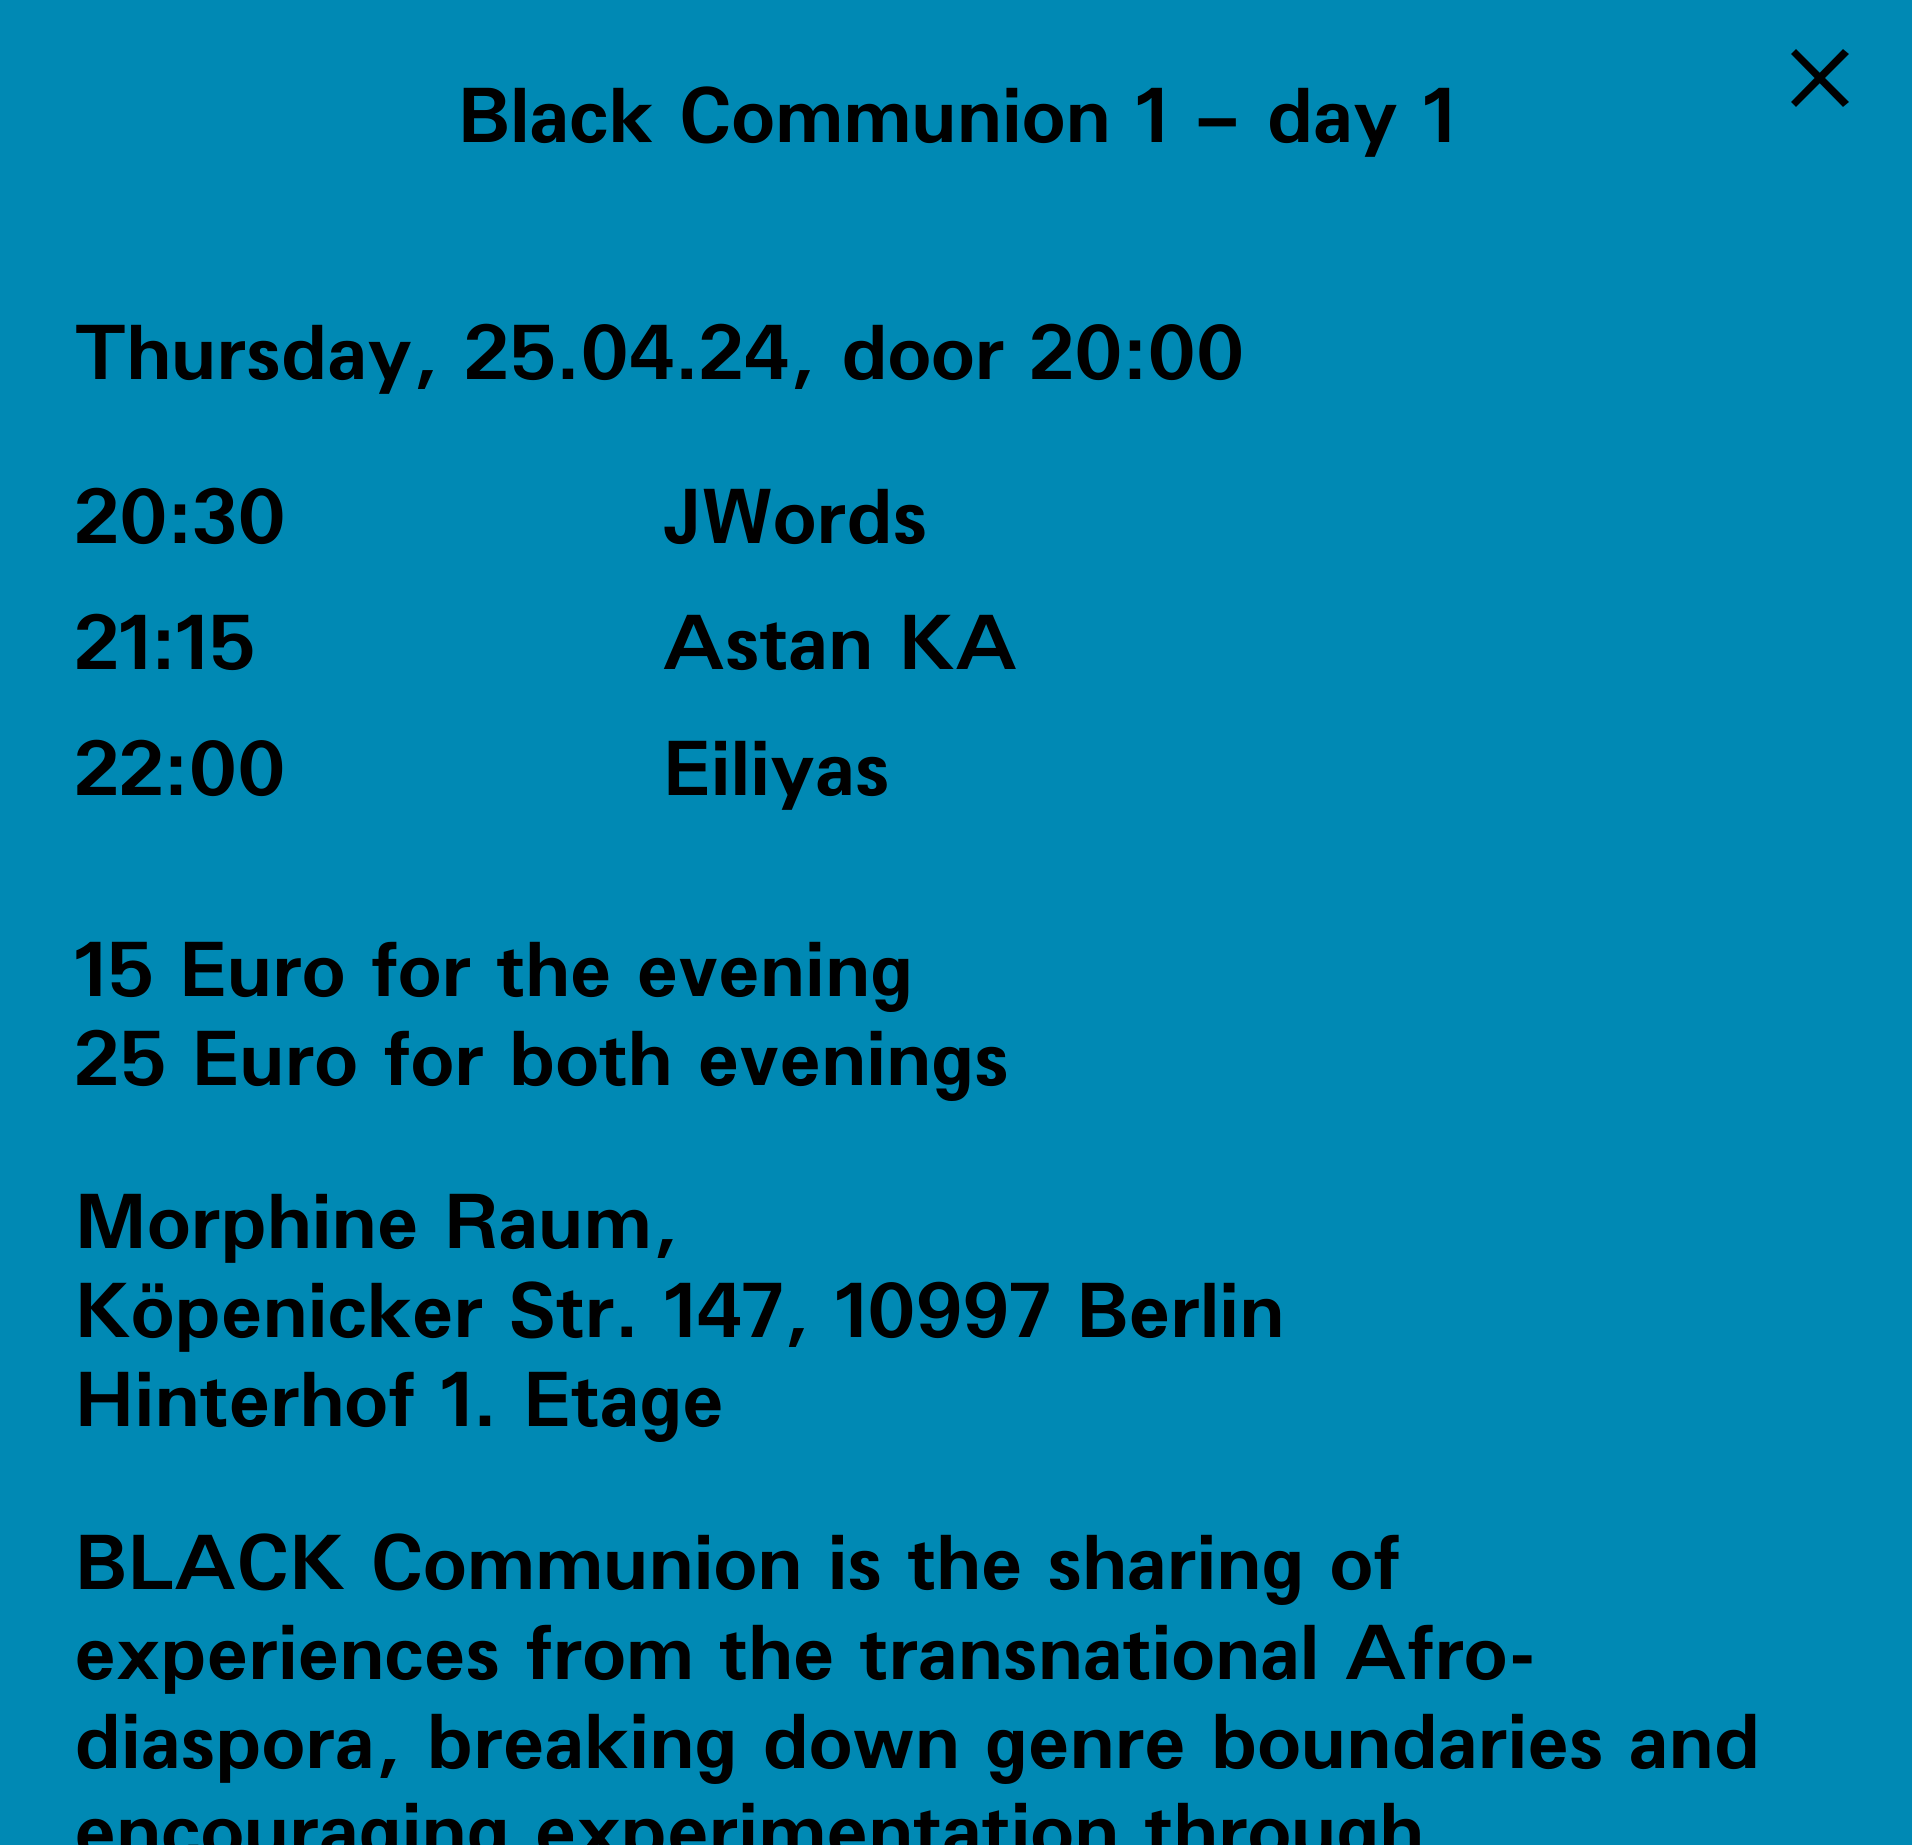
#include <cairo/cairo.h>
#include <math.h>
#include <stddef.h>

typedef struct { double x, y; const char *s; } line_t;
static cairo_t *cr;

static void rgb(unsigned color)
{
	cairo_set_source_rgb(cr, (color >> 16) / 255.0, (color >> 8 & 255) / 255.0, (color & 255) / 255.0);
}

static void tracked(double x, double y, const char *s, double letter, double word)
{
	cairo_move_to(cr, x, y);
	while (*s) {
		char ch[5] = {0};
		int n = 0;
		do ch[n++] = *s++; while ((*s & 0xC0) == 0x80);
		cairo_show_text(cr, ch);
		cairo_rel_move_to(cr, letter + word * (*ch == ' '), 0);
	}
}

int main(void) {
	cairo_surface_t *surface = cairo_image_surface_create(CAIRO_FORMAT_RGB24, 1912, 1845);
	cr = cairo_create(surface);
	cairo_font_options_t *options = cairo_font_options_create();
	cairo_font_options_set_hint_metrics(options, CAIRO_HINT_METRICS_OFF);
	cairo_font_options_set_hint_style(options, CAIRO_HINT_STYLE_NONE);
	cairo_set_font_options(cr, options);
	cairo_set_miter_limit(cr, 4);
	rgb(0x0089b4);
	cairo_paint(cr);
	rgb(0x000000);
	cairo_new_path(cr);
	cairo_move_to(cr, 1796, 49);
	cairo_line_to(cr, 1849, 102);
	cairo_line_to(cr, 1843, 107);
	cairo_line_to(cr, 1791, 54);
	cairo_close_path(cr);
	cairo_fill(cr);
	cairo_new_path(cr);
	cairo_move_to(cr, 1791, 102);
	cairo_line_to(cr, 1843, 49);
	cairo_line_to(cr, 1849, 54);
	cairo_line_to(cr, 1796, 107);
	cairo_close_path(cr);
	cairo_fill(cr);
	cairo_select_font_face(cr, "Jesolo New", CAIRO_FONT_SLANT_NORMAL, CAIRO_FONT_WEIGHT_NORMAL);
	cairo_set_font_size(cr, 74.25);
	{
		static const line_t items[] = {
			{457, 142, "Black Communion 1 – day 1"},
			{74, 379, "Thursday, 25.04.24, door 20:00"},
			{74, 543, "20:30"},
			{662, 543, "JWords"},
			{74, 669, "21:15"},
			{662, 669, "Astan KA"},
			{74, 795, "22:00"},
			{662, 795, "Eiliyas"},
			{74, 996, "15 Euro for the evening"},
			{74, 1085, "25 Euro for both evenings"},
			{74, 1248, "Morphine Raum,"},
			{74, 1337, "Köpenicker Str. 147, 10997 Berlin"},
			{74, 1426, "Hinterhof 1. Etage"},
			{74, 1589, "BLACK Communion is the sharing of"},
			{74, 1679, "experiences from the transnational Afro-"},
			{74, 1768, "diaspora, breaking down genre boundaries and"},
			{74, 1857, "encouraging experimentation through"},
		};
		for (size_t i = 0; i < sizeof items / sizeof *items; i++) {
			tracked(items[i].x, items[i].y, items[i].s, -0.75, 0);
		}
	}
	cairo_surface_write_to_png(surface, "page.png");
	cairo_font_options_destroy(options);
	cairo_destroy(cr);
	cairo_surface_destroy(surface);
	return 0;
}
